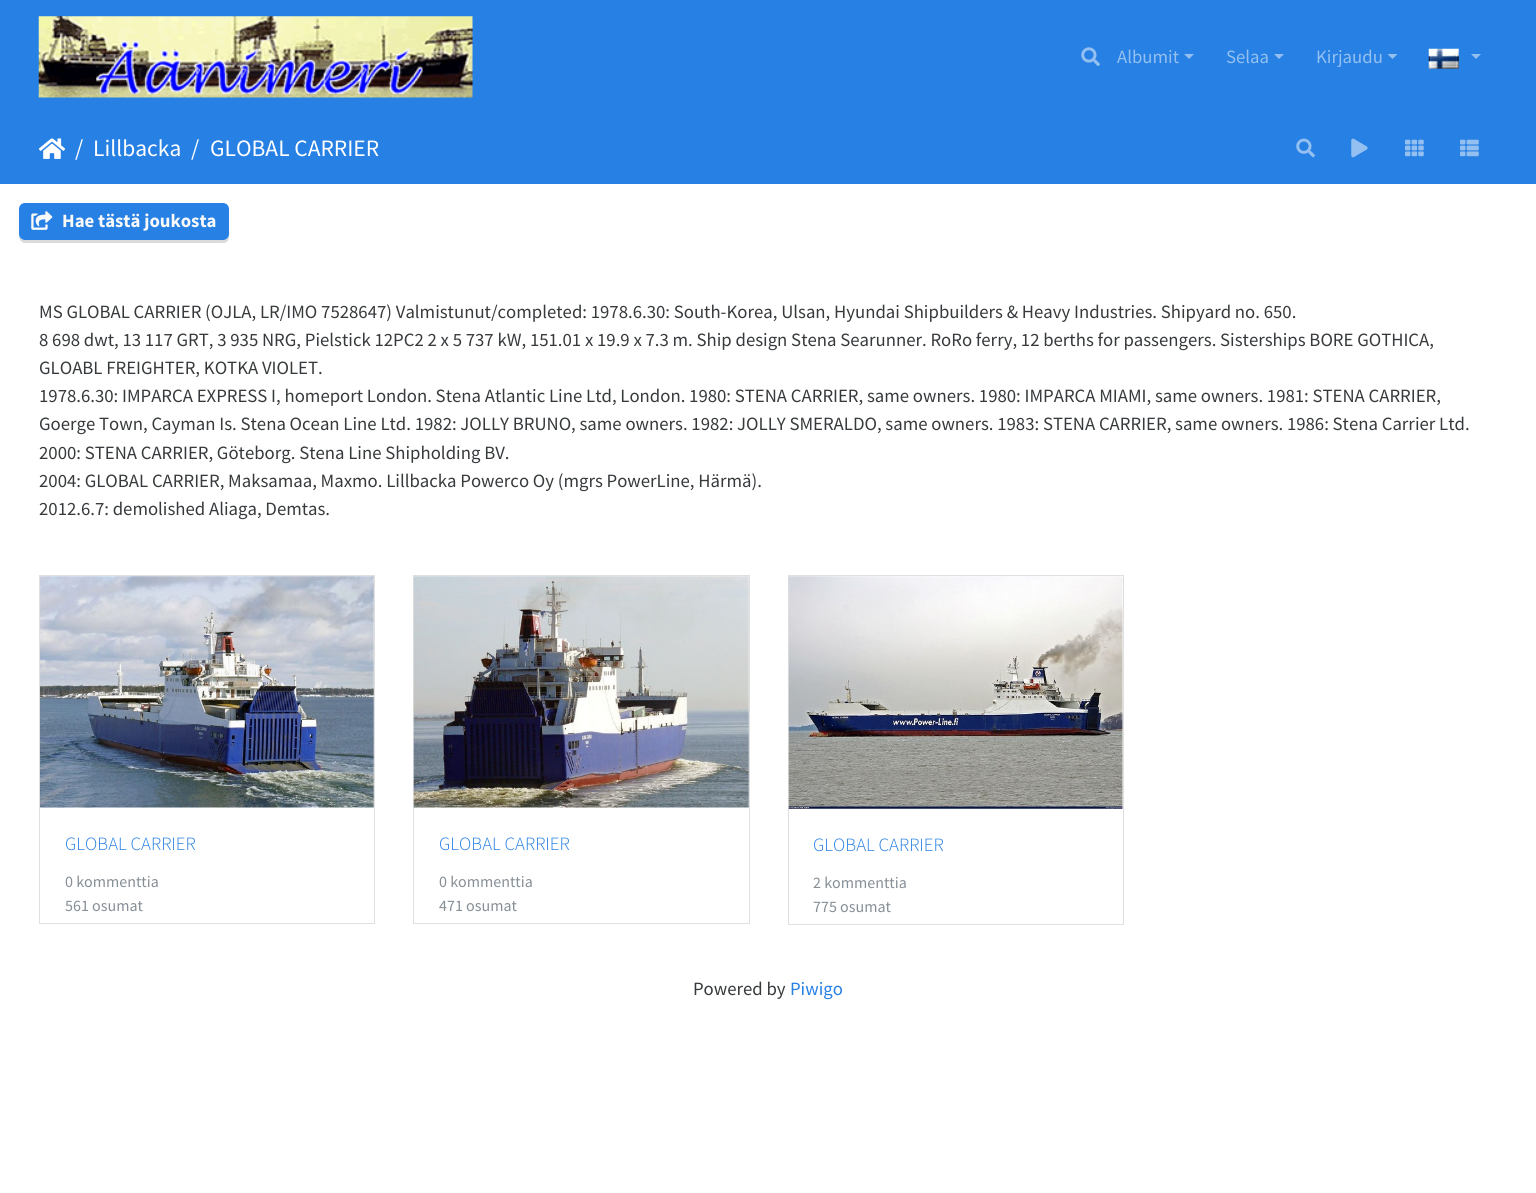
#include <cairo/cairo.h>
#include <math.h>
#include <stddef.h>

typedef struct { double x, y; const char *s; } line_t;
static cairo_t *cr;

static void rgb(unsigned color)
{
	cairo_set_source_rgb(cr, (color >> 16) / 255.0, (color >> 8 & 255) / 255.0, (color & 255) / 255.0);
}

static void rrect(double x, double y, double w, double h, double r)
{
	cairo_new_sub_path(cr);
	cairo_arc(cr, x + w - r, y + h - r, r, 0, M_PI / 2);
	cairo_arc(cr, x + r, y + h - r, r, M_PI / 2, M_PI);
	cairo_arc(cr, x + r, y + r, r, M_PI, 1.5 * M_PI);
	cairo_arc(cr, x + w - r, y + r, r, 1.5 * M_PI, 2 * M_PI);
	cairo_close_path(cr);
}

static void image(const char *path, double x, double y, double w, double h)
{
	cairo_surface_t *image = cairo_image_surface_create_from_png(path);
	cairo_save(cr);
	cairo_set_source_surface(cr, image, x, y);
	cairo_rectangle(cr, x, y, w, h);
	cairo_fill(cr);
	cairo_restore(cr);
	cairo_surface_destroy(image);
}

int main(void) {
	cairo_surface_t *surface = cairo_image_surface_create(CAIRO_FORMAT_RGB24, 1536, 1193);
	cr = cairo_create(surface);
	cairo_font_options_t *options = cairo_font_options_create();
	cairo_font_options_set_hint_metrics(options, CAIRO_HINT_METRICS_OFF);
	cairo_font_options_set_hint_style(options, CAIRO_HINT_STYLE_NONE);
	cairo_set_font_options(cr, options);
	cairo_set_miter_limit(cr, 4);
	rgb(0xffffff);
	cairo_paint(cr);
	rgb(0x2780e3);
	cairo_rectangle(cr, 0, 0, 1536, 184);
	cairo_fill(cr);
	image("img/1.png", 38, 16, 435, 82);
	image("img/2.png", 1081, 47, 19, 19);
	rgb(0x93c0f1);
	cairo_new_path(cr);
	cairo_move_to(cr, 1184, 54);
	cairo_line_to(cr, 1194, 54);
	cairo_line_to(cr, 1189, 59);
	cairo_close_path(cr);
	cairo_fill(cr);
	cairo_new_path(cr);
	cairo_move_to(cr, 1274, 54);
	cairo_line_to(cr, 1284, 54);
	cairo_line_to(cr, 1279, 59);
	cairo_close_path(cr);
	cairo_fill(cr);
	cairo_new_path(cr);
	cairo_move_to(cr, 1387.5, 54);
	cairo_line_to(cr, 1397.5, 54);
	cairo_line_to(cr, 1392.5, 59);
	cairo_close_path(cr);
	cairo_fill(cr);
	image("img/3.png", 1428, 48, 31, 21);
	cairo_new_path(cr);
	cairo_move_to(cr, 1471, 54);
	cairo_line_to(cr, 1481, 54);
	cairo_line_to(cr, 1476, 59);
	cairo_close_path(cr);
	cairo_fill(cr);
	image("img/4.png", 39, 138, 26, 21);
	image("img/5.png", 1296, 138, 19, 20);
	image("img/6.png", 1351, 138, 17, 20);
	image("img/7.png", 1405, 139, 19, 18);
	image("img/8.png", 1460, 139, 19, 18);
	rgb(0xdbdbdb);
	cairo_new_path(cr);
	cairo_move_to(cr, 19, 236);
	cairo_curve_to(cr, 19, 239, 21, 243, 25, 243);
	cairo_line_to(cr, 223, 243);
	cairo_curve_to(cr, 231, 243, 229, 233, 229, 228);
	cairo_line_to(cr, 229, 209);
	cairo_line_to(cr, 229, 234);
	cairo_curve_to(cr, 229, 237, 226, 240, 222, 240);
	cairo_line_to(cr, 25, 240);
	cairo_curve_to(cr, 22, 240, 20, 238, 19, 236);
	cairo_close_path(cr);
	cairo_fill(cr);
	rgb(0x2780e3);
	rrect(19, 203, 210, 37, 6);
	cairo_fill(cr);
	image("img/9.png", 31, 211, 22, 19);
	cairo_rectangle(cr, 39.5, 575.5, 335, 348);
	rgb(0xdfdfdf);
	cairo_set_line_width(cr, 1);
	cairo_stroke(cr);
	image("img/10.png", 40, 576, 334, 232);
	cairo_rectangle(cr, 413.5, 575.5, 336, 348);
	cairo_stroke(cr);
	image("img/11.png", 413, 576, 336, 232);
	cairo_rectangle(cr, 788.5, 575.5, 335, 349);
	cairo_stroke(cr);
	image("img/12.png", 788, 576, 335, 233);
	cairo_select_font_face(cr, "Source Sans Pro", CAIRO_FONT_SLANT_NORMAL, CAIRO_FONT_WEIGHT_NORMAL);
	cairo_set_font_size(cr, 18.75);
	rgb(0x93c0f1);
	{
		static const line_t items[] = {
			{1117, 63, "Albumit"},
			{1226, 63, "Selaa"},
			{1316, 63, "Kirjaudu"},
		};
		for (size_t i = 0; i < sizeof items / sizeof *items; i++) {
			cairo_move_to(cr, items[i].x, items[i].y);
			cairo_show_text(cr, items[i].s);
		}
	}
	cairo_set_font_size(cr, 23.5);
	rgb(0xffffff);
	{
		static const line_t items[] = {
			{75, 156, "/"},
			{93, 156, "Lillbacka"},
			{191, 156, "/"},
			{210, 156, "GLOBAL CARRIER"},
		};
		for (size_t i = 0; i < sizeof items / sizeof *items; i++) {
			cairo_move_to(cr, items[i].x, items[i].y);
			cairo_show_text(cr, items[i].s);
		}
	}
	cairo_select_font_face(cr, "Source Sans Pro", CAIRO_FONT_SLANT_NORMAL, CAIRO_FONT_WEIGHT_BOLD);
	cairo_set_font_size(cr, 18.75);
	rgb(0xf8f9fa);
	cairo_move_to(cr, 62, 227);
	cairo_show_text(cr, "Hae tästä joukosta");
	cairo_select_font_face(cr, "Source Sans Pro", CAIRO_FONT_SLANT_NORMAL, CAIRO_FONT_WEIGHT_NORMAL);
	rgb(0x373a3c);
	{
		static const line_t items[] = {
			{39, 318, "MS GLOBAL CARRIER (OJLA, LR/IMO 7528647) Valmistunut/completed: 1978.6.30: South-Korea, Ulsan, Hyundai Shipbuilders & Heavy Industries. Shipyard no. 650."},
			{39, 346, "8 698 dwt, 13 117 GRT, 3 935 NRG, Pielstick 12PC2 2 x 5 737 kW, 151.01 x 19.9 x 7.3 m. Ship design Stena Searunner. RoRo ferry, 12 berths for passengers. Sisterships BORE GOTHICA,"},
			{39, 374, "GLOABL FREIGHTER, KOTKA VIOLET."},
			{39, 402, "1978.6.30: IMPARCA EXPRESS I, homeport London. Stena Atlantic Line Ltd, London. 1980: STENA CARRIER, same owners. 1980: IMPARCA MIAMI, same owners. 1981: STENA CARRIER,"},
			{39, 430, "Goerge Town, Cayman Is. Stena Ocean Line Ltd. 1982: JOLLY BRUNO, same owners. 1982: JOLLY SMERALDO, same owners. 1983: STENA CARRIER, same owners. 1986: Stena Carrier Ltd."},
			{39, 459, "2000: STENA CARRIER, Göteborg. Stena Line Shipholding BV."},
			{39, 487, "2004: GLOBAL CARRIER, Maksamaa, Maxmo. Lillbacka Powerco Oy (mgrs PowerLine, Härmä)."},
			{39, 515, "2012.6.7: demolished Aliaga, Demtas."},
		};
		for (size_t i = 0; i < sizeof items / sizeof *items; i++) {
			cairo_move_to(cr, items[i].x, items[i].y);
			cairo_show_text(cr, items[i].s);
		}
	}
	cairo_select_font_face(cr, "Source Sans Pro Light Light", CAIRO_FONT_SLANT_NORMAL, CAIRO_FONT_WEIGHT_NORMAL);
	rgb(0x2780e3);
	cairo_move_to(cr, 65, 850);
	cairo_show_text(cr, "GLOBAL CARRIER");
	cairo_select_font_face(cr, "Source Sans Pro", CAIRO_FONT_SLANT_NORMAL, CAIRO_FONT_WEIGHT_NORMAL);
	cairo_set_font_size(cr, 16);
	rgb(0x868e96);
	cairo_move_to(cr, 65, 887);
	cairo_show_text(cr, "0 kommenttia");
	cairo_move_to(cr, 65, 911);
	cairo_show_text(cr, "561 osumat");
	cairo_select_font_face(cr, "Source Sans Pro Light Light", CAIRO_FONT_SLANT_NORMAL, CAIRO_FONT_WEIGHT_NORMAL);
	cairo_set_font_size(cr, 18.75);
	rgb(0x2780e3);
	cairo_move_to(cr, 439, 850);
	cairo_show_text(cr, "GLOBAL CARRIER");
	cairo_select_font_face(cr, "Source Sans Pro", CAIRO_FONT_SLANT_NORMAL, CAIRO_FONT_WEIGHT_NORMAL);
	cairo_set_font_size(cr, 16);
	rgb(0x868e96);
	cairo_move_to(cr, 439, 887);
	cairo_show_text(cr, "0 kommenttia");
	cairo_move_to(cr, 439, 911);
	cairo_show_text(cr, "471 osumat");
	cairo_select_font_face(cr, "Source Sans Pro Light Light", CAIRO_FONT_SLANT_NORMAL, CAIRO_FONT_WEIGHT_NORMAL);
	cairo_set_font_size(cr, 18.75);
	rgb(0x2780e3);
	cairo_move_to(cr, 813, 851);
	cairo_show_text(cr, "GLOBAL CARRIER");
	cairo_select_font_face(cr, "Source Sans Pro", CAIRO_FONT_SLANT_NORMAL, CAIRO_FONT_WEIGHT_NORMAL);
	cairo_set_font_size(cr, 16);
	rgb(0x868e96);
	cairo_move_to(cr, 813, 888);
	cairo_show_text(cr, "2 kommenttia");
	cairo_move_to(cr, 813, 912);
	cairo_show_text(cr, "775 osumat");
	cairo_set_font_size(cr, 18.75);
	rgb(0x373a3c);
	cairo_move_to(cr, 693, 995);
	cairo_show_text(cr, "Powered by");
	rgb(0x2780e3);
	cairo_move_to(cr, 790, 995);
	cairo_show_text(cr, "Piwigo");
	cairo_surface_write_to_png(surface, "page.png");
	cairo_font_options_destroy(options);
	cairo_destroy(cr);
	cairo_surface_destroy(surface);
	return 0;
}
